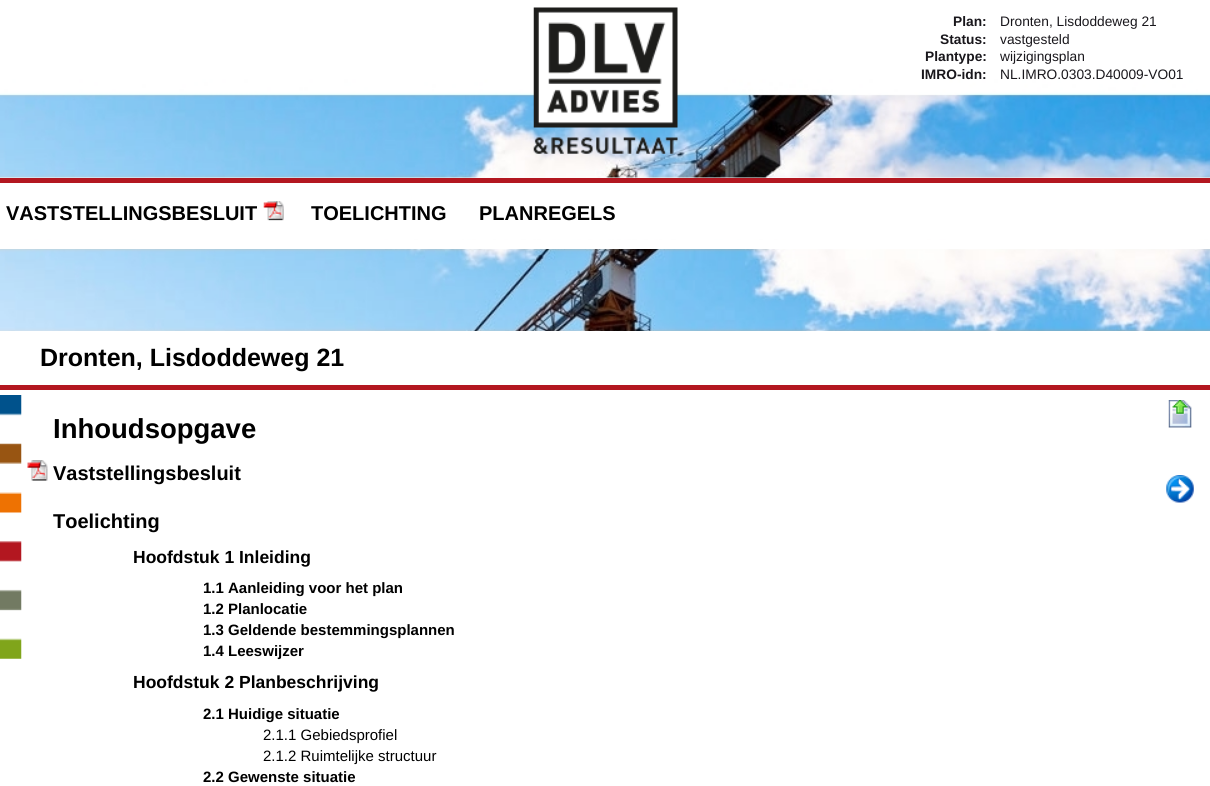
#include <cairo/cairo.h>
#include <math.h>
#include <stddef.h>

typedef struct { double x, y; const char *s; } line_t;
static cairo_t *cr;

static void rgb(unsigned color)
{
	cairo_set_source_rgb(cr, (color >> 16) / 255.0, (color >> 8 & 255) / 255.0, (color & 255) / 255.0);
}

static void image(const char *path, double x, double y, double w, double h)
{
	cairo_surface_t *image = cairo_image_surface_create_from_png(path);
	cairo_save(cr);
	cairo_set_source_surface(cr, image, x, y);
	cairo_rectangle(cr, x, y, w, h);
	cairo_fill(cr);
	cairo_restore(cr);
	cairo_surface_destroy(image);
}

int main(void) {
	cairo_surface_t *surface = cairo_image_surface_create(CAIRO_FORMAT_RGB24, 1210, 786);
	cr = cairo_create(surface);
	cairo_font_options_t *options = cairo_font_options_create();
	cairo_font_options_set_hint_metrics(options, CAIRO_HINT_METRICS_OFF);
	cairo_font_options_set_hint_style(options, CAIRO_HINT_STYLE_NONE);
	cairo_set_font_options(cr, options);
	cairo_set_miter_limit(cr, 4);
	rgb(0xffffff);
	cairo_paint(cr);
	image("img/1.png", 0, 0, 1210, 331);
	image("img/2.png", 533, 7, 145, 147);
	rgb(0xffffff);
	cairo_rectangle(cr, 0, 240, 1210, 9);
	cairo_fill(cr);
	rgb(0xb31720);
	cairo_rectangle(cr, 0, 178, 1210, 5);
	cairo_fill(cr);
	image("img/3.png", 263, 201, 21, 20);
	image("img/4.png", 0, 395, 22, 264);
	cairo_rectangle(cr, 0, 385, 1210, 5);
	cairo_fill(cr);
	image("img/5.png", 27, 460, 21, 21);
	image("img/6.png", 1168, 400, 24, 28);
	image("img/7.png", 1166, 475, 28, 28);
	cairo_select_font_face(cr, "Liberation Sans", CAIRO_FONT_SLANT_NORMAL, CAIRO_FONT_WEIGHT_BOLD);
	cairo_set_font_size(cr, 13.75);
	rgb(0x19171c);
	cairo_move_to(cr, 953, 26);
	cairo_show_text(cr, "Plan:");
	cairo_select_font_face(cr, "Liberation Sans", CAIRO_FONT_SLANT_NORMAL, CAIRO_FONT_WEIGHT_NORMAL);
	cairo_move_to(cr, 1000, 26);
	cairo_show_text(cr, "Dronten, Lisdoddeweg 21");
	cairo_select_font_face(cr, "Liberation Sans", CAIRO_FONT_SLANT_NORMAL, CAIRO_FONT_WEIGHT_BOLD);
	cairo_move_to(cr, 940, 44);
	cairo_show_text(cr, "Status:");
	cairo_select_font_face(cr, "Liberation Sans", CAIRO_FONT_SLANT_NORMAL, CAIRO_FONT_WEIGHT_NORMAL);
	cairo_move_to(cr, 1000, 44);
	cairo_show_text(cr, "vastgesteld");
	cairo_select_font_face(cr, "Liberation Sans", CAIRO_FONT_SLANT_NORMAL, CAIRO_FONT_WEIGHT_BOLD);
	cairo_move_to(cr, 925, 61);
	cairo_show_text(cr, "Plantype:");
	cairo_select_font_face(cr, "Liberation Sans", CAIRO_FONT_SLANT_NORMAL, CAIRO_FONT_WEIGHT_NORMAL);
	cairo_move_to(cr, 1000, 61);
	cairo_show_text(cr, "wijzigingsplan");
	cairo_select_font_face(cr, "Liberation Sans", CAIRO_FONT_SLANT_NORMAL, CAIRO_FONT_WEIGHT_BOLD);
	cairo_move_to(cr, 921, 79);
	cairo_show_text(cr, "IMRO-idn:");
	cairo_select_font_face(cr, "Liberation Sans", CAIRO_FONT_SLANT_NORMAL, CAIRO_FONT_WEIGHT_NORMAL);
	cairo_move_to(cr, 1000, 79);
	cairo_show_text(cr, "NL.IMRO.0303.D40009-VO01");
	cairo_select_font_face(cr, "Liberation Sans", CAIRO_FONT_SLANT_NORMAL, CAIRO_FONT_WEIGHT_BOLD);
	cairo_set_font_size(cr, 20);
	rgb(0x000000);
	{
		static const line_t items[] = {
			{6, 220, "VASTSTELLINGSBESLUIT"},
			{311, 220, "TOELICHTING"},
			{479, 220, "PLANREGELS"},
		};
		for (size_t i = 0; i < sizeof items / sizeof *items; i++) {
			cairo_move_to(cr, items[i].x, items[i].y);
			cairo_show_text(cr, items[i].s);
		}
	}
	cairo_set_font_size(cr, 25);
	cairo_move_to(cr, 40, 366);
	cairo_show_text(cr, "Dronten, Lisdoddeweg 21");
	cairo_set_font_size(cr, 27.5);
	cairo_move_to(cr, 53, 438);
	cairo_show_text(cr, "Inhoudsopgave");
	cairo_set_font_size(cr, 20);
	cairo_move_to(cr, 53, 480);
	cairo_show_text(cr, "Vaststellingsbesluit");
	cairo_move_to(cr, 53, 528);
	cairo_show_text(cr, "Toelichting");
	cairo_set_font_size(cr, 17.5);
	cairo_move_to(cr, 133, 563);
	cairo_show_text(cr, "Hoofdstuk 1 Inleiding");
	cairo_set_font_size(cr, 15);
	{
		static const line_t items[] = {
			{203, 593, "1.1 Aanleiding voor het plan"},
			{203, 614, "1.2 Planlocatie"},
			{203, 635, "1.3 Geldende bestemmingsplannen"},
			{203, 656, "1.4 Leeswijzer"},
		};
		for (size_t i = 0; i < sizeof items / sizeof *items; i++) {
			cairo_move_to(cr, items[i].x, items[i].y);
			cairo_show_text(cr, items[i].s);
		}
	}
	cairo_set_font_size(cr, 17.5);
	cairo_move_to(cr, 133, 688);
	cairo_show_text(cr, "Hoofdstuk 2 Planbeschrijving");
	cairo_set_font_size(cr, 15);
	cairo_move_to(cr, 203, 719);
	cairo_show_text(cr, "2.1 Huidige situatie");
	cairo_select_font_face(cr, "Liberation Sans", CAIRO_FONT_SLANT_NORMAL, CAIRO_FONT_WEIGHT_NORMAL);
	cairo_move_to(cr, 263, 740);
	cairo_show_text(cr, "2.1.1 Gebiedsprofiel");
	cairo_move_to(cr, 263, 761);
	cairo_show_text(cr, "2.1.2 Ruimtelijke structuur");
	cairo_select_font_face(cr, "Liberation Sans", CAIRO_FONT_SLANT_NORMAL, CAIRO_FONT_WEIGHT_BOLD);
	cairo_move_to(cr, 203, 782);
	cairo_show_text(cr, "2.2 Gewenste situatie");
	cairo_surface_write_to_png(surface, "page.png");
	cairo_font_options_destroy(options);
	cairo_destroy(cr);
	cairo_surface_destroy(surface);
	return 0;
}
